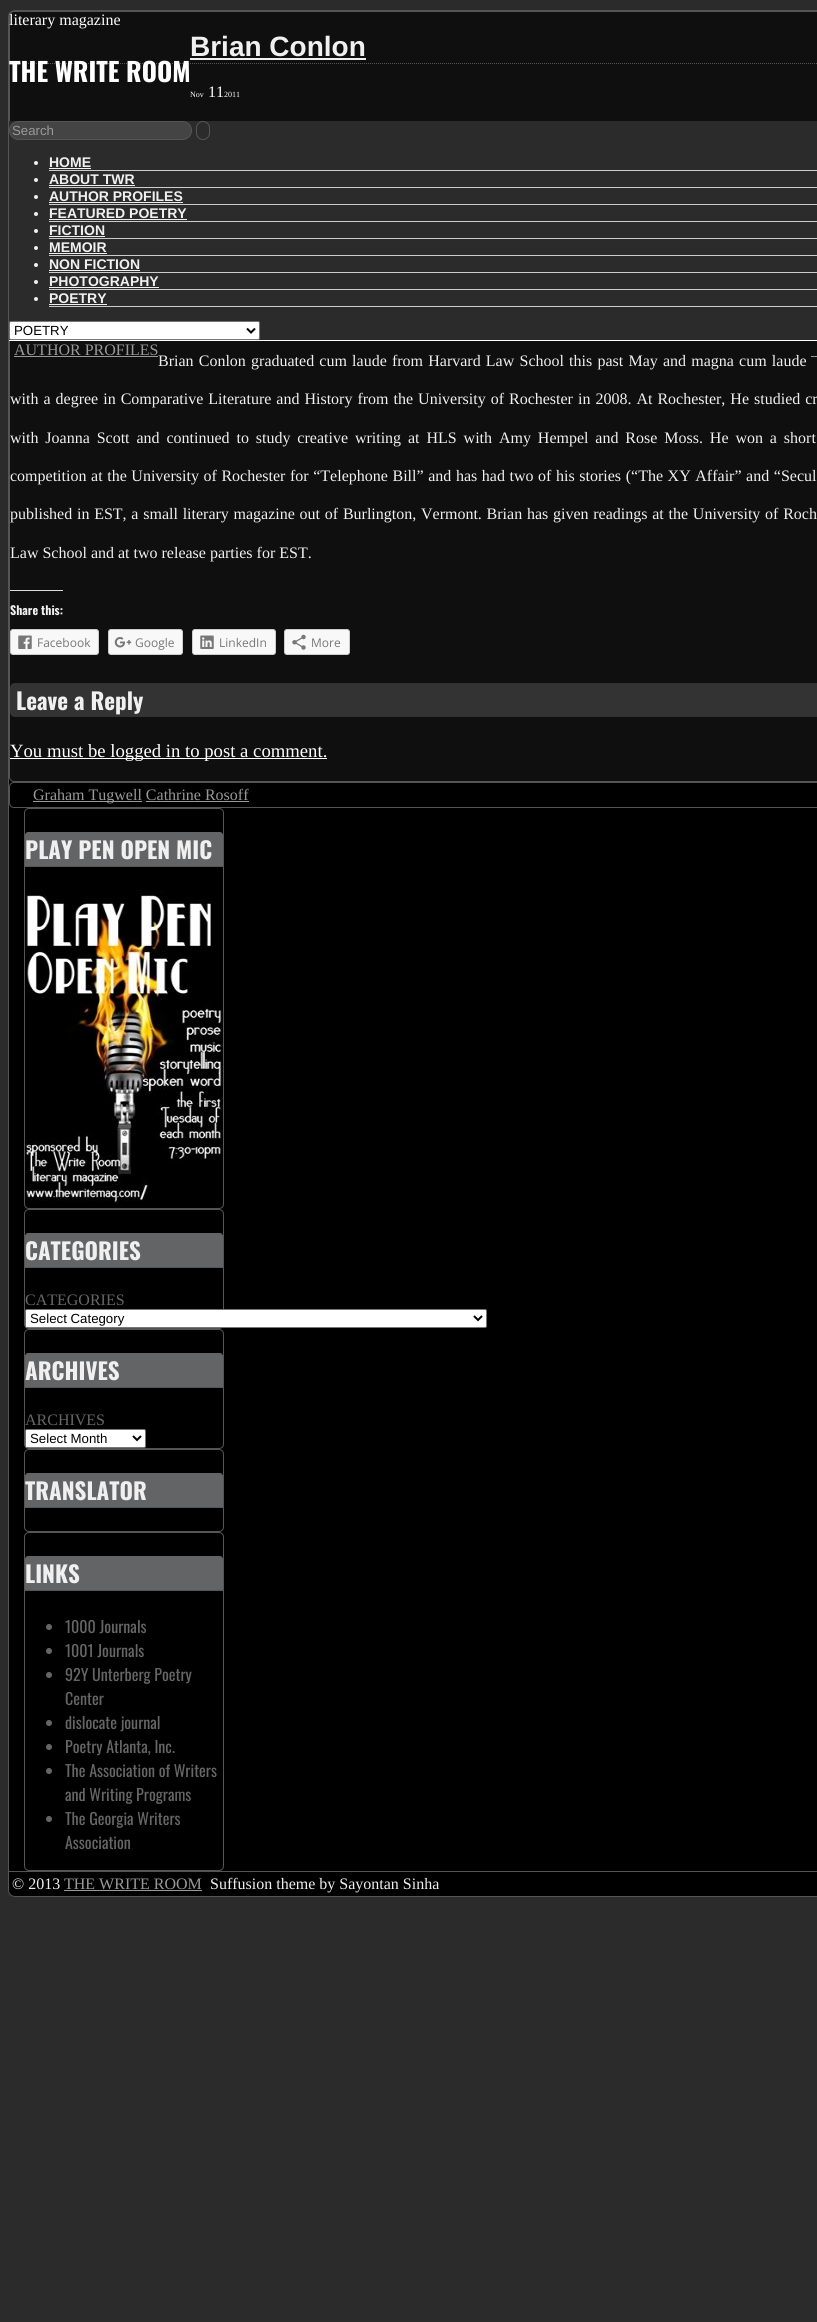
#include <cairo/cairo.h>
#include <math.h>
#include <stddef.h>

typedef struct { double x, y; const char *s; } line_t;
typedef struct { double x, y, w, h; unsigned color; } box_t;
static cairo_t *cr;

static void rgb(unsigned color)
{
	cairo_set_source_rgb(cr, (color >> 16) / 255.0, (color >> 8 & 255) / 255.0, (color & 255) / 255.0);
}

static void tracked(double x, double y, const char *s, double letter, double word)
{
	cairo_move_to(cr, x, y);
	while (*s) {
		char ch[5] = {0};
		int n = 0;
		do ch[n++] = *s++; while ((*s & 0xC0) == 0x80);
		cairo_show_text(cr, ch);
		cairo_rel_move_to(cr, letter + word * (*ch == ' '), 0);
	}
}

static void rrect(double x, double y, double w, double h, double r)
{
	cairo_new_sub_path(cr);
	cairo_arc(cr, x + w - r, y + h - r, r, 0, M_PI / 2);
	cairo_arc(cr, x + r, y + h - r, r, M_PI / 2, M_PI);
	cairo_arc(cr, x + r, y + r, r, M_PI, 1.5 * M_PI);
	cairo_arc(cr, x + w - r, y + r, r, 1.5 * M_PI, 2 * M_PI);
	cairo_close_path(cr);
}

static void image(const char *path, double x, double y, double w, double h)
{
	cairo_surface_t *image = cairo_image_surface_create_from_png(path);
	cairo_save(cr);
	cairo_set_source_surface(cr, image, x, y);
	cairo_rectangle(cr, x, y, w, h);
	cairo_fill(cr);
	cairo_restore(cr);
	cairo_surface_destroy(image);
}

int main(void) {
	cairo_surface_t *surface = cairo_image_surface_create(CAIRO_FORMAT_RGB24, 817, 2322);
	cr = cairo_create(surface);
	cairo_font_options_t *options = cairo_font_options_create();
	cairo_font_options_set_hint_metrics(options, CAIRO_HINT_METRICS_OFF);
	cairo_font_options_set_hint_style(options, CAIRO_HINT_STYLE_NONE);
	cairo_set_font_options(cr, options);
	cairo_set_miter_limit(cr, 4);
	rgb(0x2b2b2b);
	cairo_paint(cr);
	rgb(0x000000);
	rrect(8.5, 10.5, 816, 1886, 6.5);
	cairo_fill_preserve(cr);
	rgb(0x555555);
	cairo_set_line_width(cr, 1);
	cairo_stroke(cr);
	rgb(0x0f0f0f);
	rrect(9.5, 11.5, 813, 770, 4.5);
	cairo_fill_preserve(cr);
	rgb(0x555555);
	cairo_stroke(cr);
	rgb(0x2b2b2b);
	cairo_rectangle(cr, 9, 121, 808, 219);
	cairo_fill(cr);
	rgb(0xffffff);
	cairo_rectangle(cr, 9, 340, 808, 1);
	cairo_fill(cr);
	rgb(0x444444);
	rrect(9.5, 121.5, 182, 18, 9);
	cairo_fill_preserve(cr);
	rgb(0x555555);
	cairo_stroke(cr);
	rrect(196.5, 121.5, 13, 18, 6.5);
	cairo_stroke(cr);
	rgb(0xcccccc);
	cairo_rectangle(cr, 49, 170, 768, 1);
	cairo_fill(cr);
	rgb(0xf0f0f0);
	cairo_arc(cr, 36, 163, 2, 0, 2 * M_PI);
	cairo_fill(cr);
	cairo_rectangle(cr, 49, 168, 42, 1);
	cairo_fill(cr);
	rgb(0xcccccc);
	cairo_rectangle(cr, 49, 187, 768, 1);
	cairo_fill(cr);
	rgb(0xf0f0f0);
	cairo_arc(cr, 36, 180, 2, 0, 2 * M_PI);
	cairo_fill(cr);
	cairo_rectangle(cr, 49, 185, 86, 1);
	cairo_fill(cr);
	rgb(0xcccccc);
	cairo_rectangle(cr, 49, 204, 768, 1);
	cairo_fill(cr);
	rgb(0xf0f0f0);
	cairo_arc(cr, 36, 197, 2, 0, 2 * M_PI);
	cairo_fill(cr);
	cairo_rectangle(cr, 49, 202, 134, 1);
	cairo_fill(cr);
	rgb(0xcccccc);
	cairo_rectangle(cr, 49, 221, 768, 1);
	cairo_fill(cr);
	rgb(0xf0f0f0);
	cairo_arc(cr, 36, 214, 2, 0, 2 * M_PI);
	cairo_fill(cr);
	cairo_rectangle(cr, 49, 219, 138, 1);
	cairo_fill(cr);
	rgb(0xcccccc);
	cairo_rectangle(cr, 49, 238, 768, 1);
	cairo_fill(cr);
	rgb(0xf0f0f0);
	cairo_arc(cr, 36, 231, 2, 0, 2 * M_PI);
	cairo_fill(cr);
	cairo_rectangle(cr, 49, 236, 56, 1);
	cairo_fill(cr);
	rgb(0xcccccc);
	cairo_rectangle(cr, 49, 255, 768, 1);
	cairo_fill(cr);
	rgb(0xf0f0f0);
	cairo_arc(cr, 36, 248, 2, 0, 2 * M_PI);
	cairo_fill(cr);
	cairo_rectangle(cr, 49, 253, 58, 1);
	cairo_fill(cr);
	rgb(0xcccccc);
	cairo_rectangle(cr, 49, 272, 768, 1);
	cairo_fill(cr);
	rgb(0xf0f0f0);
	cairo_arc(cr, 36, 265, 2, 0, 2 * M_PI);
	cairo_fill(cr);
	cairo_rectangle(cr, 49, 270, 91, 1);
	cairo_fill(cr);
	rgb(0xcccccc);
	cairo_rectangle(cr, 49, 289, 768, 1);
	cairo_fill(cr);
	rgb(0xf0f0f0);
	cairo_arc(cr, 36, 282, 2, 0, 2 * M_PI);
	cairo_fill(cr);
	cairo_rectangle(cr, 49, 287, 110, 1);
	cairo_fill(cr);
	rgb(0xcccccc);
	cairo_rectangle(cr, 49, 306, 768, 1);
	cairo_fill(cr);
	rgb(0xf0f0f0);
	cairo_arc(cr, 36, 299, 2, 0, 2 * M_PI);
	cairo_fill(cr);
	cairo_rectangle(cr, 49, 304, 58, 1);
	cairo_fill(cr);
	rgb(0xffffff);
	rrect(9.5, 321.5, 250, 18, 1.5);
	cairo_fill_preserve(cr);
	rgb(0x767676);
	cairo_stroke(cr);
	cairo_new_path(cr);
	cairo_move_to(cr, 247, 328.5);
	cairo_line_to(cr, 251, 332.5);
	cairo_line_to(cr, 255, 328.5);
	rgb(0x000000);
	cairo_set_line_width(cr, 2);
	cairo_stroke(cr);
	cairo_new_path(cr);
	cairo_move_to(cr, 10, 63.5);
	cairo_line_to(cr, 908, 63.5);
	rgb(0x555555);
	cairo_set_line_width(cr, 1);
	cairo_set_dash(cr, (double[]){1, 1}, 2, 0);
	cairo_stroke(cr);
	{
		static const box_t items[] = {
			{190, 58, 176, 2, 0xf0f0f0},
			{14, 356, 144, 1, 0x999999},
			{811, 356, 6, 1, 0x999999},
			{10, 590, 53, 1, 0xdddddd},
		};
		for (size_t i = 0; i < sizeof items / sizeof *items; i++) {
			rgb(items[i].color);
			cairo_rectangle(cr, items[i].x, items[i].y, items[i].w, items[i].h);
			cairo_fill(cr);
		}
	}
	rgb(0xf8f8f8);
	rrect(10.5, 629.5, 88, 25, 2.5);
	cairo_fill_preserve(cr);
	rgb(0xcccccc);
	cairo_set_dash(cr, NULL, 0, 0);
	cairo_stroke(cr);
	image("img/1.png", 18, 635, 14, 14);
	rgb(0xf8f8f8);
	rrect(108.5, 629.5, 74, 25, 2.5);
	cairo_fill_preserve(cr);
	rgb(0xcccccc);
	cairo_stroke(cr);
	image("img/2.png", 114, 637, 18, 11);
	rgb(0xf8f8f8);
	rrect(192.5, 629.5, 83, 25, 2.5);
	cairo_fill_preserve(cr);
	rgb(0xcccccc);
	cairo_stroke(cr);
	image("img/3.png", 200, 635, 14, 14);
	rgb(0xf8f8f8);
	rrect(284.5, 629.5, 65, 25, 2.5);
	cairo_fill_preserve(cr);
	rgb(0xcccccc);
	cairo_stroke(cr);
	image("img/4.png", 292, 634, 14, 16);
	rgb(0x333333);
	rrect(10, 683, 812, 34, 5);
	cairo_fill(cr);
	rgb(0xffffff);
	cairo_rectangle(cr, 10, 758, 317, 1);
	cairo_fill(cr);
	rrect(9.5, 782.5, 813, 25, 4.5);
	rgb(0x555555);
	cairo_stroke(cr);
	rgb(0x999999);
	cairo_rectangle(cr, 33, 801, 109, 1);
	cairo_fill(cr);
	cairo_rectangle(cr, 146, 801, 103, 1);
	cairo_fill(cr);
	rrect(24.5, 808.5, 199, 400, 4.5);
	rgb(0x555555);
	cairo_stroke(cr);
	rgb(0x636466);
	cairo_new_path(cr);
	cairo_move_to(cr, 28, 832);
	cairo_line_to(cr, 220, 832);
	cairo_curve_to(cr, 221.5, 832, 223, 833.5, 223, 835);
	cairo_line_to(cr, 223, 867);
	cairo_line_to(cr, 25, 867);
	cairo_line_to(cr, 25, 835);
	cairo_curve_to(cr, 25, 833.5, 26.5, 832, 28, 832);
	cairo_close_path(cr);
	cairo_fill(cr);
	rgb(0x555555);
	cairo_rectangle(cr, 25, 866, 198, 1);
	cairo_fill(cr);
	image("img/5.png", 25, 890, 198, 312);
	rrect(24.5, 1209.5, 199, 119, 4.5);
	cairo_stroke(cr);
	rgb(0x636466);
	cairo_new_path(cr);
	cairo_move_to(cr, 28, 1233);
	cairo_line_to(cr, 220, 1233);
	cairo_curve_to(cr, 221.5, 1233, 223, 1234.5, 223, 1236);
	cairo_line_to(cr, 223, 1268);
	cairo_line_to(cr, 25, 1268);
	cairo_line_to(cr, 25, 1236);
	cairo_curve_to(cr, 25, 1234.5, 26.5, 1233, 28, 1233);
	cairo_close_path(cr);
	cairo_fill(cr);
	rgb(0x555555);
	cairo_rectangle(cr, 25, 1267, 198, 1);
	cairo_fill(cr);
	rgb(0xffffff);
	rrect(25.5, 1309.5, 461, 18, 1.5);
	cairo_fill_preserve(cr);
	rgb(0x767676);
	cairo_stroke(cr);
	cairo_new_path(cr);
	cairo_move_to(cr, 474, 1316);
	cairo_line_to(cr, 478, 1320);
	cairo_line_to(cr, 482, 1316);
	rgb(0x000000);
	cairo_set_line_width(cr, 2);
	cairo_stroke(cr);
	rrect(24.5, 1329.5, 199, 119, 4.5);
	rgb(0x555555);
	cairo_set_line_width(cr, 1);
	cairo_stroke(cr);
	rgb(0x636466);
	cairo_new_path(cr);
	cairo_move_to(cr, 28, 1353);
	cairo_line_to(cr, 220, 1353);
	cairo_curve_to(cr, 221.5, 1353, 223, 1354.5, 223, 1356);
	cairo_line_to(cr, 223, 1388);
	cairo_line_to(cr, 25, 1388);
	cairo_line_to(cr, 25, 1356);
	cairo_curve_to(cr, 25, 1354.5, 26.5, 1353, 28, 1353);
	cairo_close_path(cr);
	cairo_fill(cr);
	rgb(0x555555);
	cairo_rectangle(cr, 25, 1387, 198, 1);
	cairo_fill(cr);
	rgb(0xffffff);
	rrect(25.5, 1429.5, 120, 18, 1.5);
	cairo_fill_preserve(cr);
	rgb(0x767676);
	cairo_stroke(cr);
	cairo_new_path(cr);
	cairo_move_to(cr, 133, 1436);
	cairo_line_to(cr, 137, 1440);
	cairo_line_to(cr, 141, 1436);
	rgb(0x000000);
	cairo_set_line_width(cr, 2);
	cairo_stroke(cr);
	rrect(24.5, 1449.5, 199, 82, 4.5);
	rgb(0x555555);
	cairo_set_line_width(cr, 1);
	cairo_stroke(cr);
	rgb(0x636466);
	cairo_new_path(cr);
	cairo_move_to(cr, 28, 1473);
	cairo_line_to(cr, 220, 1473);
	cairo_curve_to(cr, 221.5, 1473, 223, 1474.5, 223, 1476);
	cairo_line_to(cr, 223, 1508);
	cairo_line_to(cr, 25, 1508);
	cairo_line_to(cr, 25, 1476);
	cairo_curve_to(cr, 25, 1474.5, 26.5, 1473, 28, 1473);
	cairo_close_path(cr);
	cairo_fill(cr);
	rgb(0x555555);
	cairo_rectangle(cr, 25, 1507, 198, 1);
	cairo_fill(cr);
	rrect(24.5, 1532.5, 199, 338, 4.5);
	cairo_stroke(cr);
	rgb(0x636466);
	cairo_new_path(cr);
	cairo_move_to(cr, 28, 1556);
	cairo_line_to(cr, 220, 1556);
	cairo_curve_to(cr, 221.5, 1556, 223, 1557.5, 223, 1559);
	cairo_line_to(cr, 223, 1591);
	cairo_line_to(cr, 25, 1591);
	cairo_line_to(cr, 25, 1559);
	cairo_curve_to(cr, 25, 1557.5, 26.5, 1556, 28, 1556);
	cairo_close_path(cr);
	cairo_fill(cr);
	rgb(0x555555);
	cairo_rectangle(cr, 25, 1590, 198, 1);
	cairo_fill(cr);
	rgb(0x666666);
	cairo_arc(cr, 49, 1627, 3, 0, 2 * M_PI);
	cairo_fill(cr);
	cairo_arc(cr, 49, 1651, 3, 0, 2 * M_PI);
	cairo_fill(cr);
	cairo_arc(cr, 49, 1675, 3, 0, 2 * M_PI);
	cairo_fill(cr);
	cairo_arc(cr, 49, 1723, 3, 0, 2 * M_PI);
	cairo_fill(cr);
	cairo_arc(cr, 49, 1747, 3, 0, 2 * M_PI);
	cairo_fill(cr);
	cairo_arc(cr, 49, 1771, 3, 0, 2 * M_PI);
	cairo_fill(cr);
	cairo_arc(cr, 49, 1819, 3, 0, 2 * M_PI);
	cairo_fill(cr);
	rgb(0x555555);
	cairo_rectangle(cr, 9, 1871, 808, 1);
	cairo_fill(cr);
	rgb(0x999999);
	cairo_rectangle(cr, 64, 1890, 138, 1);
	cairo_fill(cr);
	cairo_select_font_face(cr, "Liberation Serif", CAIRO_FONT_SLANT_NORMAL, CAIRO_FONT_WEIGHT_NORMAL);
	cairo_set_font_size(cr, 16);
	rgb(0xffffff);
	cairo_move_to(cr, 9, 25);
	cairo_show_text(cr, "literary magazine");
	cairo_select_font_face(cr, "Oswald", CAIRO_FONT_SLANT_NORMAL, CAIRO_FONT_WEIGHT_BOLD);
	cairo_set_font_size(cr, 26);
	cairo_move_to(cr, 9, 82);
	cairo_show_text(cr, "THE WRITE ROOM");
	cairo_select_font_face(cr, "Liberation Sans", CAIRO_FONT_SLANT_NORMAL, CAIRO_FONT_WEIGHT_NORMAL);
	cairo_set_font_size(cr, 13.25);
	rgb(0x999999);
	cairo_move_to(cr, 12, 135);
	cairo_show_text(cr, "Search");
	cairo_select_font_face(cr, "Liberation Sans", CAIRO_FONT_SLANT_NORMAL, CAIRO_FONT_WEIGHT_BOLD);
	cairo_set_font_size(cr, 14);
	rgb(0xf0f0f0);
	{
		static const line_t items[] = {
			{49, 167, "HOME"},
			{49, 184, "ABOUT TWR"},
			{49, 201, "AUTHOR PROFILES"},
			{49, 218, "FEATURED POETRY"},
			{49, 235, "FICTION"},
			{49, 252, "MEMOIR"},
			{49, 269, "NON FICTION"},
			{49, 286, "PHOTOGRAPHY"},
			{49, 303, "POETRY"},
		};
		for (size_t i = 0; i < sizeof items / sizeof *items; i++) {
			cairo_move_to(cr, items[i].x, items[i].y);
			cairo_show_text(cr, items[i].s);
		}
	}
	cairo_select_font_face(cr, "Liberation Sans", CAIRO_FONT_SLANT_NORMAL, CAIRO_FONT_WEIGHT_NORMAL);
	cairo_set_font_size(cr, 13.25);
	rgb(0x000000);
	cairo_move_to(cr, 14, 335);
	cairo_show_text(cr, "POETRY");
	cairo_select_font_face(cr, "Liberation Sans", CAIRO_FONT_SLANT_NORMAL, CAIRO_FONT_WEIGHT_BOLD);
	cairo_set_font_size(cr, 28);
	rgb(0xf0f0f0);
	cairo_move_to(cr, 190, 56);
	cairo_show_text(cr, "Brian Conlon");
	cairo_select_font_face(cr, "Liberation Serif", CAIRO_FONT_SLANT_NORMAL, CAIRO_FONT_WEIGHT_NORMAL);
	cairo_set_font_size(cr, 16);
	rgb(0x999999);
	cairo_move_to(cr, 14, 355);
	cairo_show_text(cr, "AUTHOR PROFILES");
	cairo_set_font_size(cr, 8);
	rgb(0xffffff);
	cairo_move_to(cr, 190, 97);
	cairo_show_text(cr, "Nov");
	cairo_set_font_size(cr, 16);
	cairo_move_to(cr, 208, 97);
	cairo_show_text(cr, "11");
	cairo_set_font_size(cr, 8);
	cairo_move_to(cr, 224, 97);
	cairo_show_text(cr, "2011");
	cairo_set_font_size(cr, 16);
	rgb(0xf0f0f0);
	tracked(158, 366, "Brian Conlon graduated cum laude from Harvard Law School this past May and magna cum laude", 0, 1.2);
	tracked(10, 404, "with a degree in Comparative Literature and History from the University of Rochester in 2008. At Rochester, He studied cr", 0, 1);
	tracked(10, 443, "with Joanna Scott and continued to study creative writing at HLS with Amy Hempel and Rose Moss. He won a short", 0, 2.9);
	tracked(10, 481, "competition at the University of Rochester for “Telephone Bill” and has had two of his stories (“The XY Affair” and “Secul", 0, 0.6);
	tracked(10, 519, "published in EST, a small literary magazine out of Burlington, Vermont. Brian has given readings at the University of Roch", 0, 0.75);
	cairo_move_to(cr, 10, 558);
	cairo_show_text(cr, "Law School and at two release parties for EST.");
	cairo_select_font_face(cr, "Oswald", CAIRO_FONT_SLANT_NORMAL, CAIRO_FONT_WEIGHT_BOLD);
	cairo_set_font_size(cr, 12);
	cairo_move_to(cr, 10, 615);
	cairo_show_text(cr, "Share this:");
	cairo_select_font_face(cr, "Open Sans", CAIRO_FONT_SLANT_NORMAL, CAIRO_FONT_WEIGHT_NORMAL);
	rgb(0x777777);
	{
		static const line_t items[] = {
			{37, 647, "Facebook"},
			{135, 647, "Google"},
			{219, 647, "LinkedIn"},
			{311, 647, "More"},
		};
		for (size_t i = 0; i < sizeof items / sizeof *items; i++) {
			cairo_move_to(cr, items[i].x, items[i].y);
			cairo_show_text(cr, items[i].s);
		}
	}
	cairo_select_font_face(cr, "Oswald", CAIRO_FONT_SLANT_NORMAL, CAIRO_FONT_WEIGHT_BOLD);
	cairo_set_font_size(cr, 23);
	rgb(0xf0f0f0);
	cairo_move_to(cr, 16, 710);
	cairo_show_text(cr, "Leave a Reply");
	cairo_select_font_face(cr, "Liberation Serif", CAIRO_FONT_SLANT_NORMAL, CAIRO_FONT_WEIGHT_NORMAL);
	cairo_set_font_size(cr, 18.7);
	rgb(0xffffff);
	cairo_move_to(cr, 10, 757);
	cairo_show_text(cr, "You must be logged in to post a comment.");
	cairo_set_font_size(cr, 16);
	rgb(0x999999);
	cairo_move_to(cr, 33, 800);
	cairo_show_text(cr, "Graham Tugwell Cathrine Rosoff");
	cairo_select_font_face(cr, "Oswald", CAIRO_FONT_SLANT_NORMAL, CAIRO_FONT_WEIGHT_BOLD);
	cairo_set_font_size(cr, 23);
	rgb(0xf0f0f0);
	cairo_move_to(cr, 25, 859);
	cairo_show_text(cr, "PLAY PEN OPEN MIC");
	cairo_move_to(cr, 25, 1260);
	cairo_show_text(cr, "CATEGORIES");
	cairo_select_font_face(cr, "Liberation Serif", CAIRO_FONT_SLANT_NORMAL, CAIRO_FONT_WEIGHT_NORMAL);
	cairo_set_font_size(cr, 16);
	rgb(0x666666);
	cairo_move_to(cr, 25, 1305);
	cairo_show_text(cr, "CATEGORIES");
	cairo_select_font_face(cr, "Liberation Sans", CAIRO_FONT_SLANT_NORMAL, CAIRO_FONT_WEIGHT_NORMAL);
	cairo_set_font_size(cr, 13.25);
	rgb(0x000000);
	cairo_move_to(cr, 30, 1323);
	cairo_show_text(cr, "Select Category");
	cairo_select_font_face(cr, "Oswald", CAIRO_FONT_SLANT_NORMAL, CAIRO_FONT_WEIGHT_BOLD);
	cairo_set_font_size(cr, 23);
	rgb(0xf0f0f0);
	cairo_move_to(cr, 25, 1380);
	cairo_show_text(cr, "ARCHIVES");
	cairo_select_font_face(cr, "Liberation Serif", CAIRO_FONT_SLANT_NORMAL, CAIRO_FONT_WEIGHT_NORMAL);
	cairo_set_font_size(cr, 16);
	rgb(0x666666);
	cairo_move_to(cr, 25, 1425);
	cairo_show_text(cr, "ARCHIVES");
	cairo_select_font_face(cr, "Liberation Sans", CAIRO_FONT_SLANT_NORMAL, CAIRO_FONT_WEIGHT_NORMAL);
	cairo_set_font_size(cr, 13.25);
	rgb(0x000000);
	cairo_move_to(cr, 30, 1443);
	cairo_show_text(cr, "Select Month");
	cairo_select_font_face(cr, "Oswald", CAIRO_FONT_SLANT_NORMAL, CAIRO_FONT_WEIGHT_BOLD);
	cairo_set_font_size(cr, 23);
	rgb(0xf0f0f0);
	cairo_move_to(cr, 25, 1500);
	cairo_show_text(cr, "TRANSLATOR");
	cairo_move_to(cr, 25, 1583);
	cairo_show_text(cr, "LINKS");
	cairo_select_font_face(cr, "Oswald", CAIRO_FONT_SLANT_NORMAL, CAIRO_FONT_WEIGHT_NORMAL);
	cairo_set_font_size(cr, 16);
	rgb(0x666666);
	{
		static const line_t items[] = {
			{65, 1633, "1000 Journals"},
			{65, 1657, "1001 Journals"},
			{65, 1681, "92Y Unterberg Poetry"},
			{65, 1705, "Center"},
			{65, 1729, "dislocate journal"},
			{65, 1753, "Poetry Atlanta, Inc."},
			{65, 1777, "The Association of Writers"},
			{65, 1801, "and Writing Programs"},
			{65, 1825, "The Georgia Writers"},
			{65, 1849, "Association"},
		};
		for (size_t i = 0; i < sizeof items / sizeof *items; i++) {
			cairo_move_to(cr, items[i].x, items[i].y);
			cairo_show_text(cr, items[i].s);
		}
	}
	cairo_select_font_face(cr, "Liberation Serif", CAIRO_FONT_SLANT_NORMAL, CAIRO_FONT_WEIGHT_NORMAL);
	rgb(0xf0f0f0);
	cairo_move_to(cr, 12, 1889);
	cairo_show_text(cr, "© 2013");
	rgb(0x999999);
	cairo_move_to(cr, 64, 1889);
	cairo_show_text(cr, "THE WRITE ROOM");
	rgb(0xf0f0f0);
	cairo_move_to(cr, 210, 1889);
	cairo_show_text(cr, "Suffusion theme by Sayontan Sinha");
	cairo_surface_write_to_png(surface, "page.png");
	cairo_font_options_destroy(options);
	cairo_destroy(cr);
	cairo_surface_destroy(surface);
	return 0;
}
